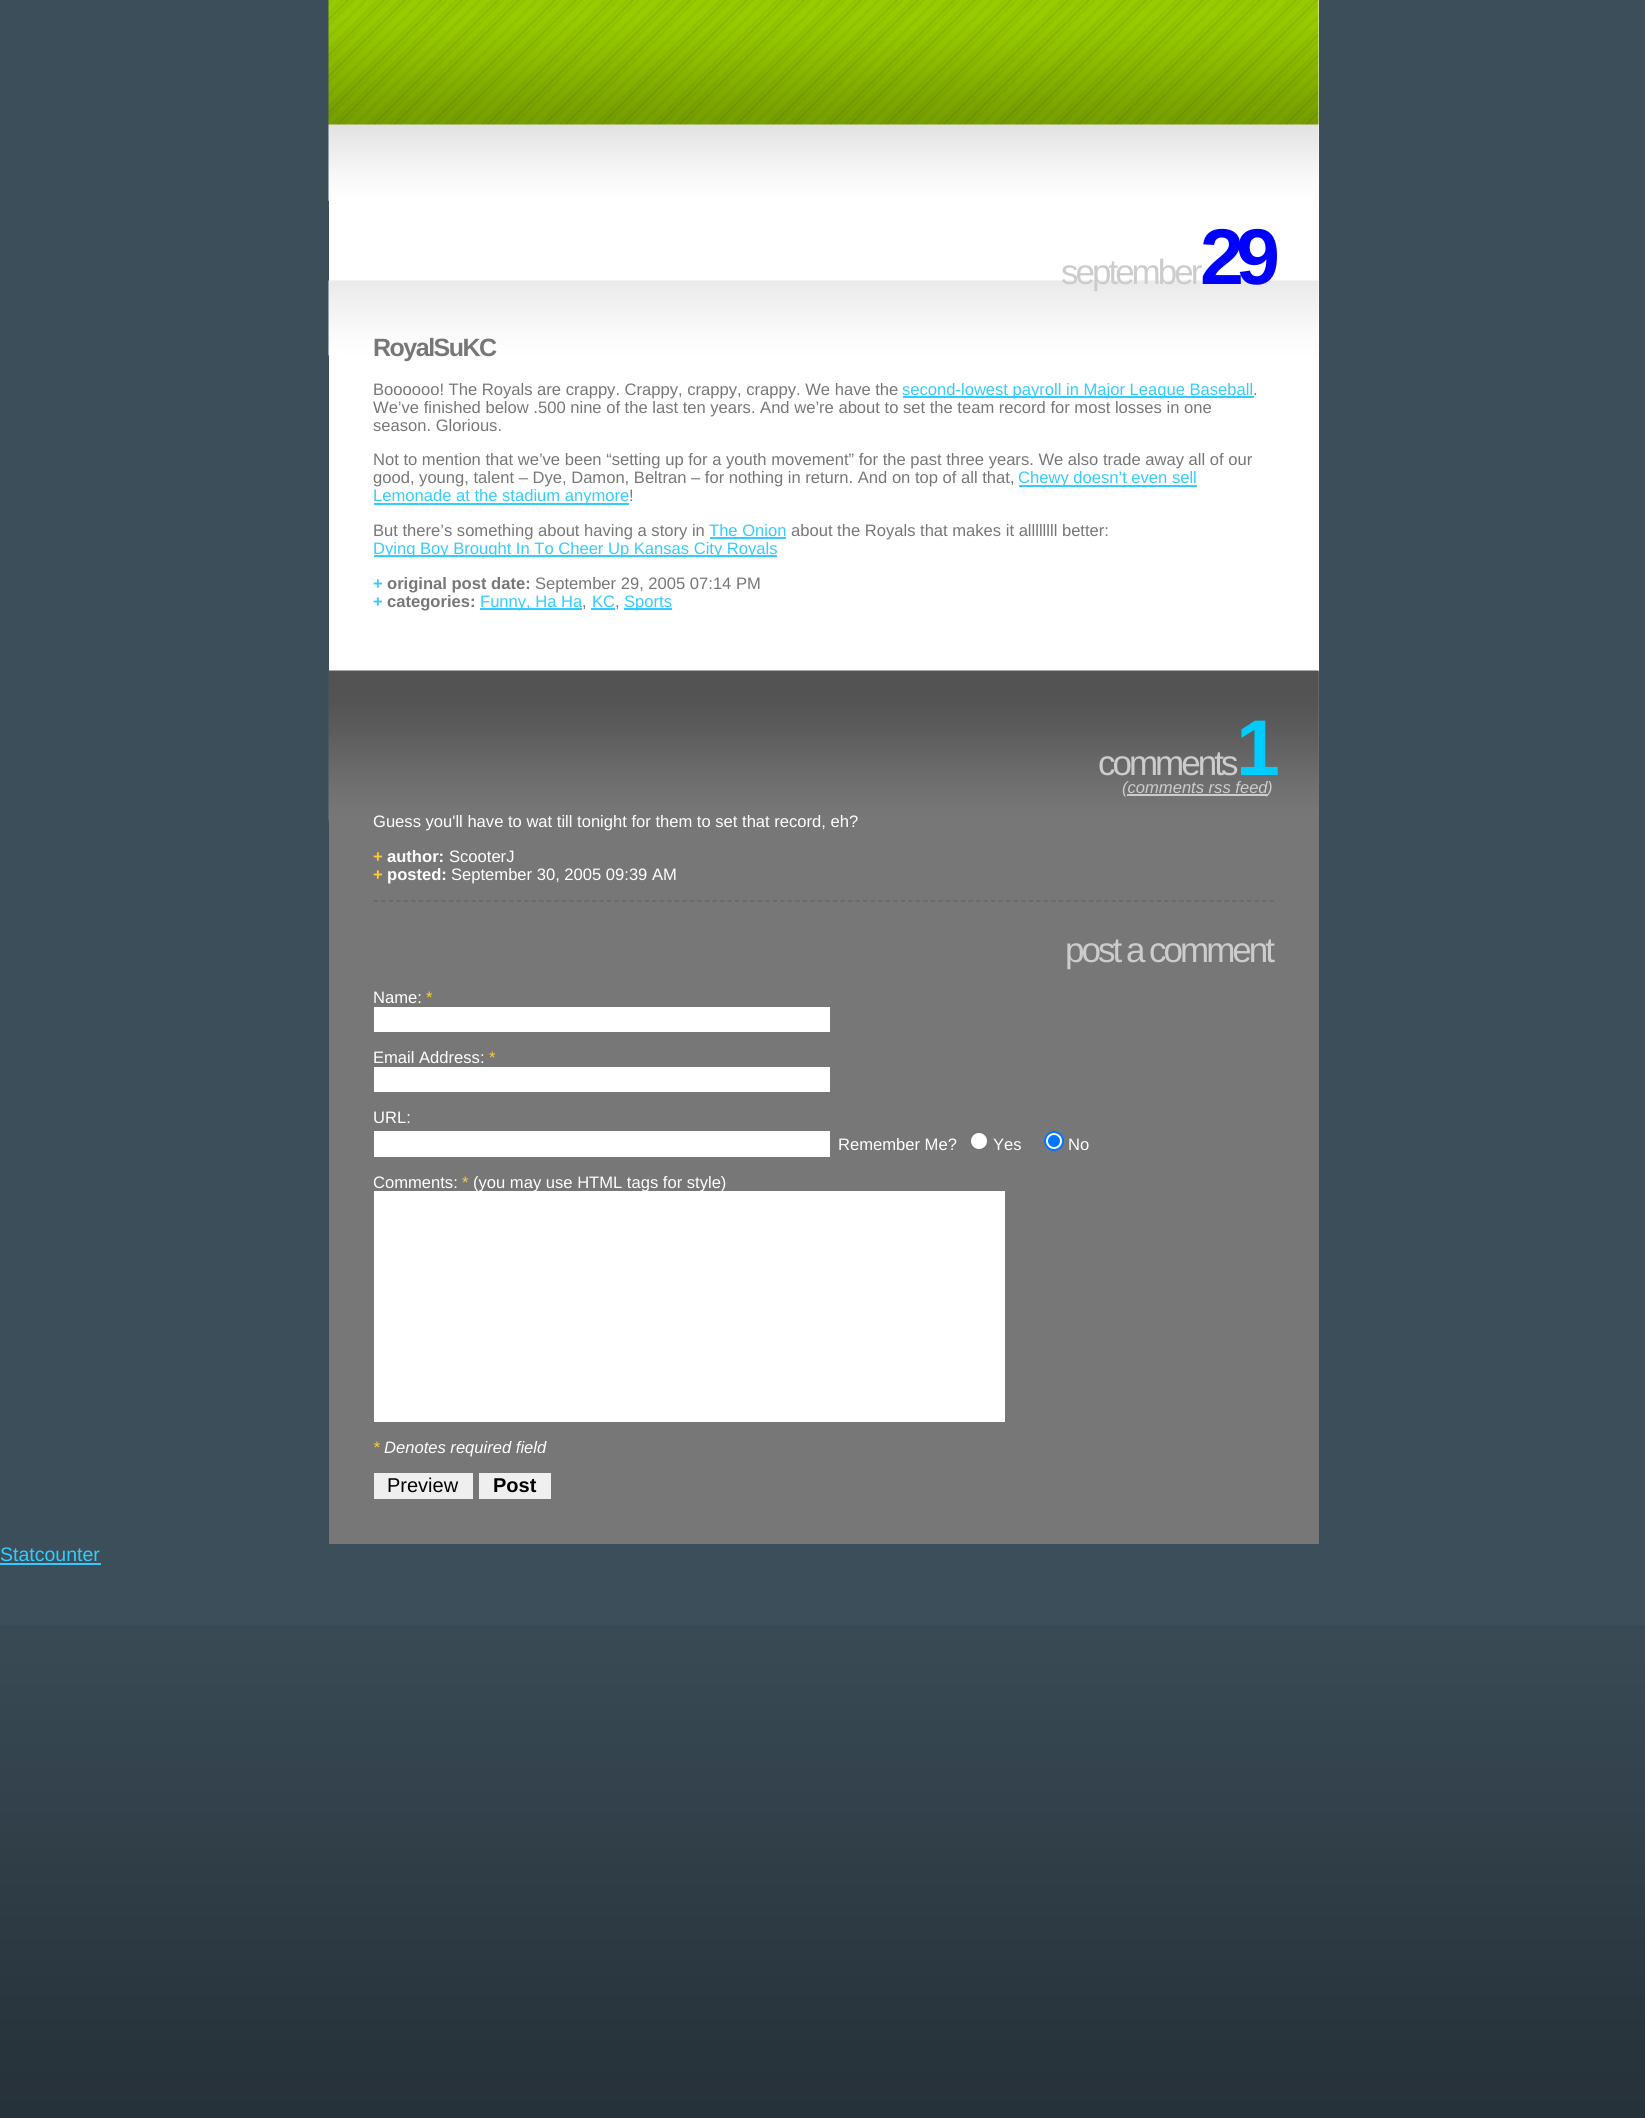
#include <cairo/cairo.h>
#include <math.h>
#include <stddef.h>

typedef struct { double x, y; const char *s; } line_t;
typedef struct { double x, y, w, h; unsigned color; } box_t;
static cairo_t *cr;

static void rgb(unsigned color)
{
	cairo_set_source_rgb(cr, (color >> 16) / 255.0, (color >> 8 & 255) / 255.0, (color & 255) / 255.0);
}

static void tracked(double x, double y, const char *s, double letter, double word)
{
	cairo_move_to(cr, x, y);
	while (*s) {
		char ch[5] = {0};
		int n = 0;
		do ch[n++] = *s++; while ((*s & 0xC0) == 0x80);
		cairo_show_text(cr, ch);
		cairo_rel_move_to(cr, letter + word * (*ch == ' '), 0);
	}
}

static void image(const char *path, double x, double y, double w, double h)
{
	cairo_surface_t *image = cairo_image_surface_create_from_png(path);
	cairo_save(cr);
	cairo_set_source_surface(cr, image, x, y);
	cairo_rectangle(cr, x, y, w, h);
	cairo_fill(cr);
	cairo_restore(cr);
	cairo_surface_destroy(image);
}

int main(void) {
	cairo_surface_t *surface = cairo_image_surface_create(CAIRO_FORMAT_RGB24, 1645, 2118);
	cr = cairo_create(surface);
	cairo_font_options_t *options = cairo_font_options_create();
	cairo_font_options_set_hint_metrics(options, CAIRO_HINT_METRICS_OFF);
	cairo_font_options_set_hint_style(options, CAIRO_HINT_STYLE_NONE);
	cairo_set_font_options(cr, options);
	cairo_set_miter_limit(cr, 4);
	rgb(0x3c4e5a);
	cairo_paint(cr);
	image("img/1.png", 0, 1625, 1645, 493);
	rgb(0xffffff);
	cairo_rectangle(cr, 329, 0, 990, 671);
	cairo_fill(cr);
	image("img/2.png", 328, 0, 991, 201);
	image("img/3.png", 328, 280, 991, 76);
	{
		static const box_t items[] = {
			{903, 396, 351, 2, 0x33ccff},
			{1019, 485, 178, 2, 0x33ccff},
			{374, 503, 255, 2, 0x33ccff},
			{710, 537, 76, 2, 0x33ccff},
			{374, 555, 403, 2, 0x33ccff},
			{480, 608, 102, 2, 0x33ccff},
			{591, 608, 24, 2, 0x33ccff},
			{624, 608, 48, 2, 0x33ccff},
			{329, 671, 990, 873, 0x777777},
		};
		for (size_t i = 0; i < sizeof items / sizeof *items; i++) {
			rgb(items[i].color);
			cairo_rectangle(cr, items[i].x, items[i].y, items[i].w, items[i].h);
			cairo_fill(cr);
		}
	}
	image("img/4.png", 328, 670, 991, 151);
	rgb(0xcccccc);
	cairo_rectangle(cr, 1127, 794, 141, 2);
	cairo_fill(cr);
	cairo_new_path(cr);
	cairo_move_to(cr, 373.5, 901);
	cairo_line_to(cr, 1273.5, 901);
	rgb(0x666666);
	cairo_set_line_width(cr, 1.5);
	cairo_set_dash(cr, (double[]){4.5, 3.03}, 2, 0);
	cairo_stroke(cr);
	{
		static const box_t items[] = {
			{374, 1007, 456, 25, 0xffffff},
			{374, 1067, 456, 25, 0xffffff},
			{374, 1131, 456, 26, 0xffffff},
		};
		for (size_t i = 0; i < sizeof items / sizeof *items; i++) {
			rgb(items[i].color);
			cairo_rectangle(cr, items[i].x, items[i].y, items[i].w, items[i].h);
			cairo_fill(cr);
		}
	}
	cairo_arc(cr, 979, 1141, 9, 0, 2 * M_PI);
	cairo_fill_preserve(cr);
	rgb(0x767676);
	cairo_set_line_width(cr, 2);
	cairo_set_dash(cr, NULL, 0, 0);
	cairo_stroke(cr);
	rgb(0xffffff);
	cairo_arc(cr, 1054, 1141, 9, 0, 2 * M_PI);
	cairo_fill_preserve(cr);
	rgb(0x0075ff);
	cairo_stroke(cr);
	cairo_arc(cr, 1054, 1141, 6, 0, 2 * M_PI);
	cairo_fill(cr);
	{
		static const box_t items[] = {
			{374, 1191, 631, 231, 0xffffff},
			{374, 1473, 99, 26, 0xefefef},
			{479, 1473, 72, 26, 0xefefef},
			{0, 1563, 101, 2, 0x33ccff},
		};
		for (size_t i = 0; i < sizeof items / sizeof *items; i++) {
			rgb(items[i].color);
			cairo_rectangle(cr, items[i].x, items[i].y, items[i].w, items[i].h);
			cairo_fill(cr);
		}
	}
	cairo_select_font_face(cr, "Liberation Sans", CAIRO_FONT_SLANT_NORMAL, CAIRO_FONT_WEIGHT_NORMAL);
	cairo_set_font_size(cr, 35);
	rgb(0xcccccc);
	tracked(1061, 284, "september", -3, 0);
	cairo_select_font_face(cr, "Liberation Sans", CAIRO_FONT_SLANT_NORMAL, CAIRO_FONT_WEIGHT_BOLD);
	cairo_set_font_size(cr, 79);
	rgb(0x0000ff);
	tracked(1200, 284, "29", -8, 0);
	cairo_set_font_size(cr, 25);
	rgb(0x777777);
	tracked(373, 356, "RoyalSuKC", -1.5, 0);
	cairo_select_font_face(cr, "Liberation Sans", CAIRO_FONT_SLANT_NORMAL, CAIRO_FONT_WEIGHT_NORMAL);
	cairo_set_font_size(cr, 16.58);
	cairo_move_to(cr, 373, 395);
	cairo_show_text(cr, "Boooooo! The Royals are crappy. Crappy, crappy, crappy. We have the");
	rgb(0x33ccff);
	cairo_move_to(cr, 902, 395);
	cairo_show_text(cr, "second-lowest payroll in Major League Baseball");
	rgb(0x777777);
	{
		static const line_t items[] = {
			{1253, 395, "."},
			{373, 413, "We’ve finished below .500 nine of the last ten years. And we’re about to set the team record for most losses in one"},
			{373, 431, "season. Glorious."},
			{373, 465, "Not to mention that we’ve been “setting up for a youth movement” for the past three years. We also trade away all of our"},
			{373, 483, "good, young, talent – Dye, Damon, Beltran – for nothing in return. And on top of all that,"},
		};
		for (size_t i = 0; i < sizeof items / sizeof *items; i++) {
			cairo_move_to(cr, items[i].x, items[i].y);
			cairo_show_text(cr, items[i].s);
		}
	}
	rgb(0x33ccff);
	cairo_move_to(cr, 1018, 483);
	cairo_show_text(cr, "Chewy doesn’t even sell");
	cairo_move_to(cr, 373, 501);
	cairo_show_text(cr, "Lemonade at the stadium anymore");
	rgb(0x777777);
	cairo_move_to(cr, 629, 501);
	cairo_show_text(cr, "!");
	cairo_move_to(cr, 373, 536);
	cairo_show_text(cr, "But there’s something about having a story in");
	rgb(0x33ccff);
	cairo_move_to(cr, 709, 536);
	cairo_show_text(cr, "The Onion");
	rgb(0x777777);
	cairo_move_to(cr, 791, 536);
	cairo_show_text(cr, "about the Royals that makes it allllllll better:");
	rgb(0x33ccff);
	cairo_move_to(cr, 373, 554);
	cairo_show_text(cr, "Dying Boy Brought In To Cheer Up Kansas City Royals");
	cairo_select_font_face(cr, "Liberation Sans", CAIRO_FONT_SLANT_NORMAL, CAIRO_FONT_WEIGHT_BOLD);
	cairo_move_to(cr, 373, 589);
	cairo_show_text(cr, "+");
	rgb(0x777777);
	cairo_move_to(cr, 387, 589);
	cairo_show_text(cr, "original post date:");
	cairo_select_font_face(cr, "Liberation Sans", CAIRO_FONT_SLANT_NORMAL, CAIRO_FONT_WEIGHT_NORMAL);
	cairo_move_to(cr, 535, 589);
	cairo_show_text(cr, "September 29, 2005 07:14 PM");
	cairo_select_font_face(cr, "Liberation Sans", CAIRO_FONT_SLANT_NORMAL, CAIRO_FONT_WEIGHT_BOLD);
	rgb(0x33ccff);
	cairo_move_to(cr, 373, 607);
	cairo_show_text(cr, "+");
	rgb(0x777777);
	cairo_move_to(cr, 387, 607);
	cairo_show_text(cr, "categories:");
	cairo_select_font_face(cr, "Liberation Sans", CAIRO_FONT_SLANT_NORMAL, CAIRO_FONT_WEIGHT_NORMAL);
	rgb(0x33ccff);
	{
		static const line_t items[] = {
			{480, 607, "Funny, Ha Ha"},
			{592, 607, "KC"},
			{624, 607, "Sports"},
		};
		for (size_t i = 0; i < sizeof items / sizeof *items; i++) {
			cairo_move_to(cr, items[i].x, items[i].y);
			cairo_show_text(cr, items[i].s);
		}
	}
	rgb(0x777777);
	cairo_move_to(cr, 582, 607);
	cairo_show_text(cr, ",");
	cairo_move_to(cr, 615, 607);
	cairo_show_text(cr, ",");
	cairo_set_font_size(cr, 35);
	rgb(0xcccccc);
	tracked(1098, 775, "comments", -3, 0);
	cairo_select_font_face(cr, "Liberation Sans", CAIRO_FONT_SLANT_NORMAL, CAIRO_FONT_WEIGHT_BOLD);
	cairo_set_font_size(cr, 79);
	rgb(0x00ccff);
	tracked(1236, 775, "1", -8, 0);
	cairo_select_font_face(cr, "Liberation Sans", CAIRO_FONT_SLANT_ITALIC, CAIRO_FONT_WEIGHT_NORMAL);
	cairo_set_font_size(cr, 16.58);
	rgb(0xcccccc);
	cairo_move_to(cr, 1122, 793);
	cairo_show_text(cr, "(comments rss feed");
	cairo_move_to(cr, 1267, 793);
	cairo_show_text(cr, ")");
	cairo_select_font_face(cr, "Liberation Sans", CAIRO_FONT_SLANT_NORMAL, CAIRO_FONT_WEIGHT_NORMAL);
	rgb(0xffffff);
	cairo_move_to(cr, 373, 827);
	cairo_show_text(cr, "Guess you'll have to wat till tonight for them to set that record, eh?");
	cairo_select_font_face(cr, "Liberation Sans", CAIRO_FONT_SLANT_NORMAL, CAIRO_FONT_WEIGHT_BOLD);
	rgb(0xffcc33);
	cairo_move_to(cr, 373, 862);
	cairo_show_text(cr, "+");
	rgb(0xffffff);
	cairo_move_to(cr, 387, 862);
	cairo_show_text(cr, "author:");
	cairo_select_font_face(cr, "Liberation Sans", CAIRO_FONT_SLANT_NORMAL, CAIRO_FONT_WEIGHT_NORMAL);
	cairo_move_to(cr, 449, 862);
	cairo_show_text(cr, "ScooterJ");
	cairo_select_font_face(cr, "Liberation Sans", CAIRO_FONT_SLANT_NORMAL, CAIRO_FONT_WEIGHT_BOLD);
	rgb(0xffcc33);
	cairo_move_to(cr, 373, 880);
	cairo_show_text(cr, "+");
	rgb(0xffffff);
	cairo_move_to(cr, 387, 880);
	cairo_show_text(cr, "posted:");
	cairo_select_font_face(cr, "Liberation Sans", CAIRO_FONT_SLANT_NORMAL, CAIRO_FONT_WEIGHT_NORMAL);
	cairo_move_to(cr, 451, 880);
	cairo_show_text(cr, "September 30, 2005 09:39 AM");
	cairo_set_font_size(cr, 35);
	rgb(0xcccccc);
	tracked(1065, 962, "post a comment", -3, 0);
	cairo_set_font_size(cr, 16.58);
	rgb(0xffffff);
	cairo_move_to(cr, 373, 1003);
	cairo_show_text(cr, "Name:");
	rgb(0xffcc33);
	cairo_move_to(cr, 426, 1003);
	cairo_show_text(cr, "*");
	rgb(0xffffff);
	cairo_move_to(cr, 373, 1063);
	cairo_show_text(cr, "Email Address:");
	rgb(0xffcc33);
	cairo_move_to(cr, 489, 1063);
	cairo_show_text(cr, "*");
	rgb(0xffffff);
	{
		static const line_t items[] = {
			{373, 1123, "URL:"},
			{838, 1150, "Remember Me?"},
			{993, 1150, "Yes"},
			{1068, 1150, "No"},
			{373, 1188, "Comments:"},
		};
		for (size_t i = 0; i < sizeof items / sizeof *items; i++) {
			cairo_move_to(cr, items[i].x, items[i].y);
			cairo_show_text(cr, items[i].s);
		}
	}
	rgb(0xffcc33);
	cairo_move_to(cr, 462, 1188);
	cairo_show_text(cr, "*");
	rgb(0xffffff);
	cairo_move_to(cr, 473, 1188);
	cairo_show_text(cr, "(you may use HTML tags for style)");
	cairo_select_font_face(cr, "Liberation Sans", CAIRO_FONT_SLANT_ITALIC, CAIRO_FONT_WEIGHT_NORMAL);
	rgb(0xffcc33);
	cairo_move_to(cr, 373, 1453);
	cairo_show_text(cr, "*");
	rgb(0xffffff);
	cairo_move_to(cr, 384, 1453);
	cairo_show_text(cr, "Denotes required field");
	cairo_select_font_face(cr, "Liberation Sans", CAIRO_FONT_SLANT_NORMAL, CAIRO_FONT_WEIGHT_NORMAL);
	cairo_set_font_size(cr, 20);
	rgb(0x000000);
	cairo_move_to(cr, 387, 1492);
	cairo_show_text(cr, "Preview");
	cairo_select_font_face(cr, "Liberation Sans", CAIRO_FONT_SLANT_NORMAL, CAIRO_FONT_WEIGHT_BOLD);
	cairo_move_to(cr, 493, 1492);
	cairo_show_text(cr, "Post");
	cairo_select_font_face(cr, "Liberation Sans", CAIRO_FONT_SLANT_NORMAL, CAIRO_FONT_WEIGHT_NORMAL);
	cairo_set_font_size(cr, 19.5);
	rgb(0x33ccff);
	cairo_move_to(cr, 0, 1561);
	cairo_show_text(cr, "Statcounter");
	cairo_surface_write_to_png(surface, "page.png");
	cairo_font_options_destroy(options);
	cairo_destroy(cr);
	cairo_surface_destroy(surface);
	return 0;
}
